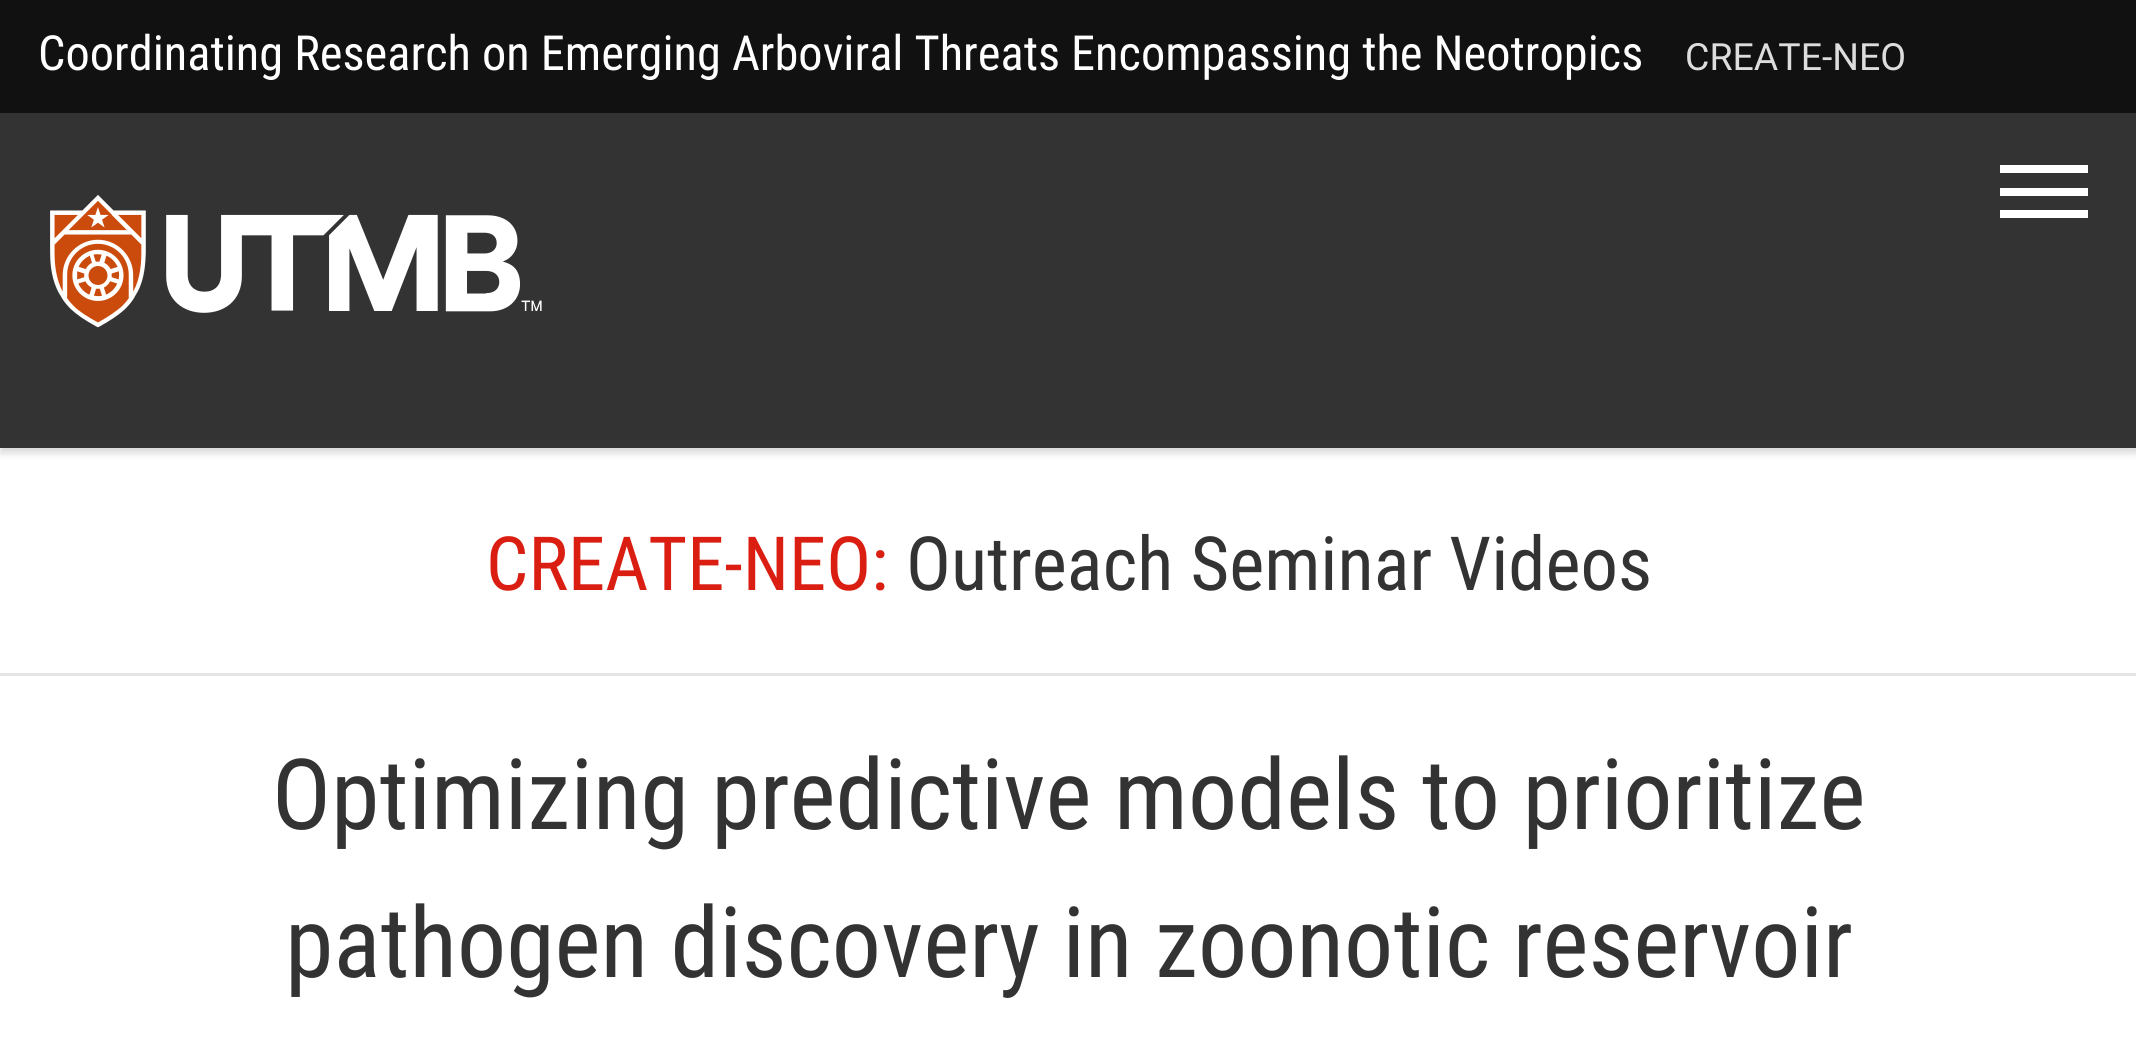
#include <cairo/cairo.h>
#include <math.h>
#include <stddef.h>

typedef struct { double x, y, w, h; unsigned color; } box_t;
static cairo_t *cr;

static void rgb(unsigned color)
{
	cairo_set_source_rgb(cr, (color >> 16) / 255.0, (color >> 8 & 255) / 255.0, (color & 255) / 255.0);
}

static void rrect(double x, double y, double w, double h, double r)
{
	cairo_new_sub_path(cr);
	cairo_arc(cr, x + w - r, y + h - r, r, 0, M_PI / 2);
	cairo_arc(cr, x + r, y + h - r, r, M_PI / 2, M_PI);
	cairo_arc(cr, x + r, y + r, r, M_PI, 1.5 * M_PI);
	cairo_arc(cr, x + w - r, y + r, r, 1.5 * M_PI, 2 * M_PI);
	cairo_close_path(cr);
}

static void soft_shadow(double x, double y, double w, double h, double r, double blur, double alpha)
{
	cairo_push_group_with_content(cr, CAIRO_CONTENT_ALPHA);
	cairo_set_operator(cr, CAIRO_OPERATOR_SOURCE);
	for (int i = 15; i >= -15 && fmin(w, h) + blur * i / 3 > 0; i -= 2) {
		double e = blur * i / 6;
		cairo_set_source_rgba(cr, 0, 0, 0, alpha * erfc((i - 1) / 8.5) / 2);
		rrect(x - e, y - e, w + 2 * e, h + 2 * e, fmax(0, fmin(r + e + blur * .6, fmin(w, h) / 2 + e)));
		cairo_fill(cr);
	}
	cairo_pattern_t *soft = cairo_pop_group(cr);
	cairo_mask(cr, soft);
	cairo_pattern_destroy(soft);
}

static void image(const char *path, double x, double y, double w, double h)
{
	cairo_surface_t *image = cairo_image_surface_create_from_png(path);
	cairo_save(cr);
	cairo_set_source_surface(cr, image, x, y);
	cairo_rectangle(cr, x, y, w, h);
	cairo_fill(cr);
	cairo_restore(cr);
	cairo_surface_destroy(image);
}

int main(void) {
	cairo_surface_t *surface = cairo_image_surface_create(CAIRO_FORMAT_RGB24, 2136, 1050);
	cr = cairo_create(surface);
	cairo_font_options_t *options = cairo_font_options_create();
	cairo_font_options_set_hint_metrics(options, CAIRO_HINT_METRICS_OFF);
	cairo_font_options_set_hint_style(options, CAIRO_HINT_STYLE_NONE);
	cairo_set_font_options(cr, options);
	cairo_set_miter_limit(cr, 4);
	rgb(0xffffff);
	cairo_paint(cr);
	rgb(0x111111);
	cairo_rectangle(cr, 0, 0, 2136, 113);
	cairo_fill(cr);
	rgb(0x000000);
	soft_shadow(0, 118, 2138, 335, 0, 4, 0.16);
	rgb(0x333333);
	cairo_rectangle(cr, 0, 113, 2136, 335);
	cairo_fill(cr);
	image("img/1.png", 50, 195, 492, 133);
	{
		static const box_t items[] = {
			{2000, 165, 88, 8, 0xffffff},
			{2000, 188, 88, 8, 0xffffff},
			{2000, 210, 88, 8, 0xffffff},
			{0, 673, 2136, 3, 0xe5e5e5},
		};
		for (size_t i = 0; i < sizeof items / sizeof *items; i++) {
			rgb(items[i].color);
			cairo_rectangle(cr, items[i].x, items[i].y, items[i].w, items[i].h);
			cairo_fill(cr);
		}
	}
	cairo_select_font_face(cr, "Roboto Condensed", CAIRO_FONT_SLANT_NORMAL, CAIRO_FONT_WEIGHT_NORMAL);
	cairo_set_font_size(cr, 48.4);
	rgb(0xffffff);
	cairo_move_to(cr, 38, 70);
	cairo_show_text(cr, "Coordinating Research on Emerging Arboviral Threats Encompassing the Neotropics");
	cairo_select_font_face(cr, "Roboto", CAIRO_FONT_SLANT_NORMAL, CAIRO_FONT_WEIGHT_NORMAL);
	cairo_set_font_size(cr, 37.5);
	rgb(0xdddddd);
	cairo_move_to(cr, 1685, 70);
	cairo_show_text(cr, "CREATE-NEO");
	cairo_select_font_face(cr, "Roboto Condensed", CAIRO_FONT_SLANT_NORMAL, CAIRO_FONT_WEIGHT_NORMAL);
	cairo_set_font_size(cr, 74.75);
	rgb(0xda1f12);
	cairo_move_to(cr, 486, 590);
	cairo_show_text(cr, "CREATE-NEO:");
	rgb(0x333333);
	cairo_move_to(cr, 906, 590);
	cairo_show_text(cr, "Outreach Seminar Videos");
	cairo_set_font_size(cr, 98.2);
	cairo_move_to(cr, 272, 829);
	cairo_show_text(cr, "Optimizing predictive models to prioritize");
	cairo_move_to(cr, 285, 977);
	cairo_show_text(cr, "pathogen discovery in zoonotic reservoir");
	cairo_surface_write_to_png(surface, "page.png");
	cairo_font_options_destroy(options);
	cairo_destroy(cr);
	cairo_surface_destroy(surface);
	return 0;
}
